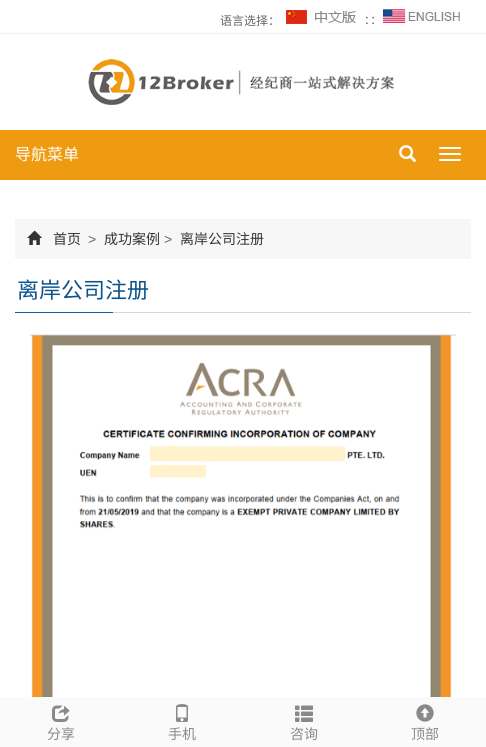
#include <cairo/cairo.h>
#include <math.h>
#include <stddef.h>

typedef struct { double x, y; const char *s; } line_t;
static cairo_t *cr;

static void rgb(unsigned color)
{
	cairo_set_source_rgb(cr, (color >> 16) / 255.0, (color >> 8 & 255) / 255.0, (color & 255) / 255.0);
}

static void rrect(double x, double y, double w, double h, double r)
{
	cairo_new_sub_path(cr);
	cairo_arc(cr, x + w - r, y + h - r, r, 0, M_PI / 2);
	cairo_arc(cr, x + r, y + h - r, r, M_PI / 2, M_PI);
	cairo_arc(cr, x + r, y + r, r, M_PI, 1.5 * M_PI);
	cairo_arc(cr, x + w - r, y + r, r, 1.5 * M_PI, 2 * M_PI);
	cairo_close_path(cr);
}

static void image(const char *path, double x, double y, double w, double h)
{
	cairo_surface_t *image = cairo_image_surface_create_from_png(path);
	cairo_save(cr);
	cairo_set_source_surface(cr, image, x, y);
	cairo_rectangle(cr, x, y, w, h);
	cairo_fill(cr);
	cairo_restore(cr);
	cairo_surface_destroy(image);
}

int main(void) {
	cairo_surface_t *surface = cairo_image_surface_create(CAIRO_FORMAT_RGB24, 486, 747);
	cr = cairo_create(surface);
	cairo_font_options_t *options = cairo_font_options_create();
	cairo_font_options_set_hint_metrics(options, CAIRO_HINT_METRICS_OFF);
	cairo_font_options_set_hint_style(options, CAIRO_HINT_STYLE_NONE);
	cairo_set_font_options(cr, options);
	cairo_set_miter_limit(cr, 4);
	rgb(0xffffff);
	cairo_paint(cr);
	rgb(0xf1f1f1);
	cairo_rectangle(cr, 0, 33, 486, 1);
	cairo_fill(cr);
	image("img/1.png", 286, 10, 70, 14);
	image("img/2.png", 383, 9, 77, 14);
	image("img/3.png", 88, 59, 306, 46);
	rgb(0xef9b11);
	cairo_rectangle(cr, 0, 130, 486, 50);
	cairo_fill(cr);
	image("img/4.png", 399, 145, 18, 18);
	rgb(0xffffff);
	rrect(439, 147, 22, 2, 1);
	cairo_fill(cr);
	rrect(439, 153, 22, 2, 1);
	cairo_fill(cr);
	rrect(439, 159, 22, 2, 1);
	cairo_fill(cr);
	rgb(0xf7f7f7);
	cairo_rectangle(cr, 15, 219, 456, 40);
	cairo_fill(cr);
	image("img/5.png", 27, 230, 15, 15);
	image("img/6.png", 15, 310, 456, 3);
	image("img/7.png", 30, 334, 426, 363);
	rgb(0xfafafa);
	cairo_rectangle(cr, 0, 697, 486, 50);
	cairo_fill(cr);
	image("img/8.png", 52, 705, 18, 17);
	image("img/9.png", 176, 704, 12, 18);
	image("img/10.png", 295, 705, 18, 17);
	image("img/11.png", 416, 704, 18, 18);
	cairo_select_font_face(cr, "Noto Sans CJK SC", CAIRO_FONT_SLANT_NORMAL, CAIRO_FONT_WEIGHT_NORMAL);
	cairo_set_font_size(cr, 12);
	rgb(0x666666);
	cairo_move_to(cr, 220, 25);
	cairo_show_text(cr, "语言选择：");
	cairo_move_to(cr, 364, 25);
	cairo_show_text(cr, "∷");
	cairo_set_font_size(cr, 16);
	rgb(0xffffff);
	cairo_move_to(cr, 15, 160);
	cairo_show_text(cr, "导航菜单");
	cairo_set_font_size(cr, 14);
	rgb(0x333333);
	cairo_move_to(cr, 53, 244);
	cairo_show_text(cr, "首页");
	cairo_select_font_face(cr, "Liberation Sans", CAIRO_FONT_SLANT_NORMAL, CAIRO_FONT_WEIGHT_NORMAL);
	rgb(0x666666);
	cairo_move_to(cr, 88, 244);
	cairo_show_text(cr, ">");
	cairo_select_font_face(cr, "Noto Sans CJK SC", CAIRO_FONT_SLANT_NORMAL, CAIRO_FONT_WEIGHT_NORMAL);
	rgb(0x333333);
	cairo_move_to(cr, 104, 244);
	cairo_show_text(cr, "成功案例");
	cairo_select_font_face(cr, "Liberation Sans", CAIRO_FONT_SLANT_NORMAL, CAIRO_FONT_WEIGHT_NORMAL);
	rgb(0x666666);
	cairo_move_to(cr, 164, 244);
	cairo_show_text(cr, ">");
	cairo_select_font_face(cr, "Noto Sans CJK SC", CAIRO_FONT_SLANT_NORMAL, CAIRO_FONT_WEIGHT_NORMAL);
	rgb(0x333333);
	cairo_move_to(cr, 180, 244);
	cairo_show_text(cr, "离岸公司注册");
	cairo_set_font_size(cr, 22);
	rgb(0x0c548c);
	cairo_move_to(cr, 17, 298);
	cairo_show_text(cr, "离岸公司注册");
	cairo_set_font_size(cr, 14);
	rgb(0x898989);
	{
		static const line_t items[] = {
			{47, 739, "分享"},
			{168, 739, "手机"},
			{290, 739, "咨询"},
			{411, 739, "顶部"},
		};
		for (size_t i = 0; i < sizeof items / sizeof *items; i++) {
			cairo_move_to(cr, items[i].x, items[i].y);
			cairo_show_text(cr, items[i].s);
		}
	}
	cairo_surface_write_to_png(surface, "page.png");
	cairo_font_options_destroy(options);
	cairo_destroy(cr);
	cairo_surface_destroy(surface);
	return 0;
}
